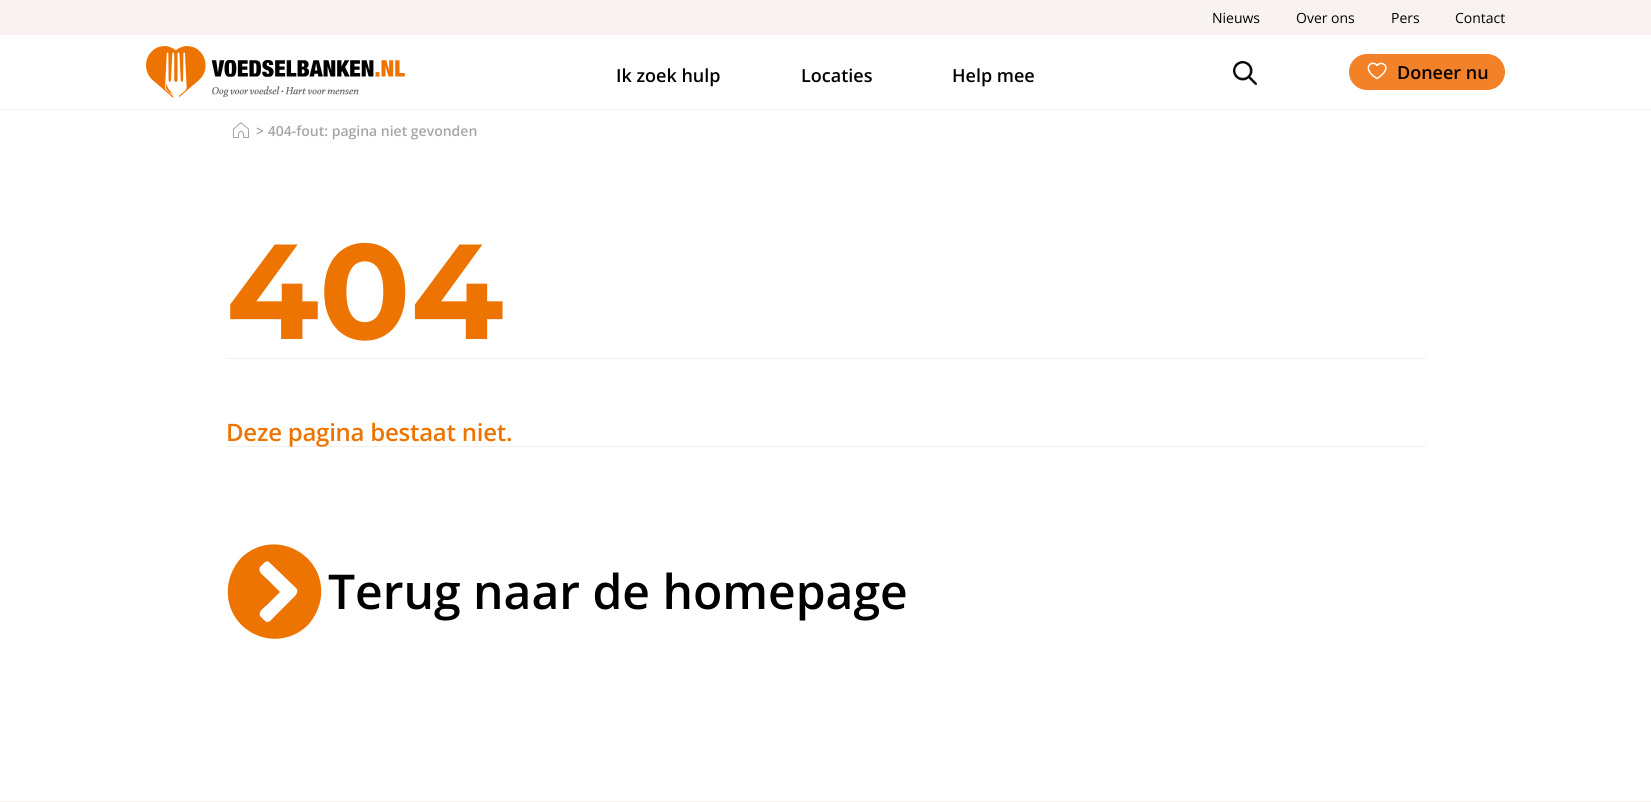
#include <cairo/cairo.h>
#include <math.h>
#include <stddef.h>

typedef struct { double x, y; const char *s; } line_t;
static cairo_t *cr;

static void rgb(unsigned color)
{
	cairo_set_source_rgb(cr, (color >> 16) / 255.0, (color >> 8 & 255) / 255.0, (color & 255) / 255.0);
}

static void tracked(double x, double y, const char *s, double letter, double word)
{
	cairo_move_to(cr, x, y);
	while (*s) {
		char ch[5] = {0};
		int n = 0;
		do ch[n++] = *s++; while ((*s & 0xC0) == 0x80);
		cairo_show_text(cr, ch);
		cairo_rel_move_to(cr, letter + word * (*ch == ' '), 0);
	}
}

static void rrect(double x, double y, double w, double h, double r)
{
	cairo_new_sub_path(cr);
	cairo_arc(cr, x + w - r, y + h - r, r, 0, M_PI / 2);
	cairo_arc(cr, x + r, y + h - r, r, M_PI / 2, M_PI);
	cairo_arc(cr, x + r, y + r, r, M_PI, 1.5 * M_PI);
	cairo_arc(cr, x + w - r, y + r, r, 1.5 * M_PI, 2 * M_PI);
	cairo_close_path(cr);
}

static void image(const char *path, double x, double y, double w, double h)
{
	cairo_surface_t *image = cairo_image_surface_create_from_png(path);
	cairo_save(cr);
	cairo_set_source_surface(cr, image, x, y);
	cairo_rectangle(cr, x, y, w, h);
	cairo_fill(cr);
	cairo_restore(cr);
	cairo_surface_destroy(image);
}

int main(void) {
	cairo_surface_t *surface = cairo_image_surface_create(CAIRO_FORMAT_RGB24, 1651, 802);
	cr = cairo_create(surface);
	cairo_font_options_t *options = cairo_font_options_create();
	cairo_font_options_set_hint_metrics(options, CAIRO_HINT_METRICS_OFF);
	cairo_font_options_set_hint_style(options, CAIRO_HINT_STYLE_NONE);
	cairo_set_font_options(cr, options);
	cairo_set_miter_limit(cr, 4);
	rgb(0xffffff);
	cairo_paint(cr);
	rgb(0xf8f3f0);
	cairo_rectangle(cr, 0, 0, 1651, 35);
	cairo_fill(cr);
	rgb(0xf1f1f1);
	cairo_rectangle(cr, 0, 109, 1651, 1);
	cairo_fill(cr);
	image("img/1.png", 146, 46, 259, 52);
	image("img/2.png", 1233, 61, 24, 24);
	rgb(0xf38128);
	rrect(1349, 54, 156, 36, 18);
	cairo_fill(cr);
	cairo_new_path(cr);
	cairo_move_to(cr, 1377, 78.5);
	cairo_curve_to(cr, 1360, 68, 1372.5, 59, 1377, 65.5);
	cairo_curve_to(cr, 1381.5, 59.5, 1394.5, 67.5, 1377, 78.5);
	cairo_close_path(cr);
	rgb(0xffffff);
	cairo_set_line_width(cr, 1.5);
	cairo_set_line_cap(cr, CAIRO_LINE_CAP_ROUND);
	cairo_set_line_join(cr, CAIRO_LINE_JOIN_ROUND);
	cairo_stroke(cr);
	image("img/3.png", 233, 122, 16, 16);
	rgb(0xf0f0f0);
	cairo_rectangle(cr, 226, 358, 1200, 1);
	cairo_fill(cr);
	cairo_rectangle(cr, 226, 446, 1200, 1);
	cairo_fill(cr);
	rgb(0xee7402);
	cairo_new_path(cr);
	cairo_move_to(cr, 241, 558);
	cairo_curve_to(cr, 273, 527, 325, 553, 321, 596);
	cairo_curve_to(cr, 320, 607, 315, 617, 308, 625);
	cairo_curve_to(cr, 276, 656, 224, 631, 228, 587);
	cairo_curve_to(cr, 229, 576, 234, 566, 241, 558);
	cairo_close_path(cr);
	cairo_move_to(cr, 296, 588);
	cairo_line_to(cr, 270, 563);
	cairo_curve_to(cr, 267, 559, 264, 563, 261, 566);
	cairo_curve_to(cr, 256, 571, 264, 576, 267, 579);
	cairo_line_to(cr, 280, 592);
	cairo_line_to(cr, 267, 605);
	cairo_curve_to(cr, 265, 607, 258, 611, 260, 616);
	cairo_line_to(cr, 263, 619);
	cairo_curve_to(cr, 268, 625, 270, 621, 275, 616);
	cairo_line_to(cr, 292, 599);
	cairo_curve_to(cr, 294, 597, 300, 592, 296, 588);
	cairo_close_path(cr);
	cairo_fill(cr);
	rgb(0xf8f3f0);
	cairo_rectangle(cr, 0, 801, 1651, 1);
	cairo_fill(cr);
	cairo_select_font_face(cr, "Open Sans", CAIRO_FONT_SLANT_NORMAL, CAIRO_FONT_WEIGHT_NORMAL);
	cairo_set_font_size(cr, 14);
	rgb(0x000000);
	{
		static const line_t items[] = {
			{1212, 23, "Nieuws"},
			{1296, 23, "Over ons"},
			{1391, 23, "Pers"},
			{1455, 23, "Contact"},
		};
		for (size_t i = 0; i < sizeof items / sizeof *items; i++) {
			cairo_move_to(cr, items[i].x, items[i].y);
			cairo_show_text(cr, items[i].s);
		}
	}
	cairo_select_font_face(cr, "Open Sans SemiBold", CAIRO_FONT_SLANT_NORMAL, CAIRO_FONT_WEIGHT_NORMAL);
	cairo_set_font_size(cr, 18);
	{
		static const line_t items[] = {
			{616, 82, "Ik zoek hulp"},
			{801, 82, "Locaties"},
			{952, 82, "Help mee"},
			{1397, 79, "Doneer nu"},
		};
		for (size_t i = 0; i < sizeof items / sizeof *items; i++) {
			cairo_move_to(cr, items[i].x, items[i].y);
			cairo_show_text(cr, items[i].s);
		}
	}
	cairo_set_font_size(cr, 14);
	rgb(0xa6a6a6);
	cairo_move_to(cr, 256, 136);
	cairo_show_text(cr, "> 404-fout: pagina niet gevonden");
	cairo_select_font_face(cr, "Montserrat", CAIRO_FONT_SLANT_NORMAL, CAIRO_FONT_WEIGHT_BOLD);
	cairo_set_font_size(cr, 135);
	rgb(0xee7402);
	cairo_move_to(cr, 226, 339);
	cairo_show_text(cr, "404");
	cairo_select_font_face(cr, "Open Sans SemiBold", CAIRO_FONT_SLANT_NORMAL, CAIRO_FONT_WEIGHT_NORMAL);
	cairo_set_font_size(cr, 24);
	tracked(226, 441, "Deze pagina bestaat niet.", -0.25, 0);
	cairo_set_font_size(cr, 48);
	rgb(0x000000);
	cairo_move_to(cr, 328, 609);
	cairo_show_text(cr, "Terug naar de homepage");
	cairo_surface_write_to_png(surface, "page.png");
	cairo_font_options_destroy(options);
	cairo_destroy(cr);
	cairo_surface_destroy(surface);
	return 0;
}
